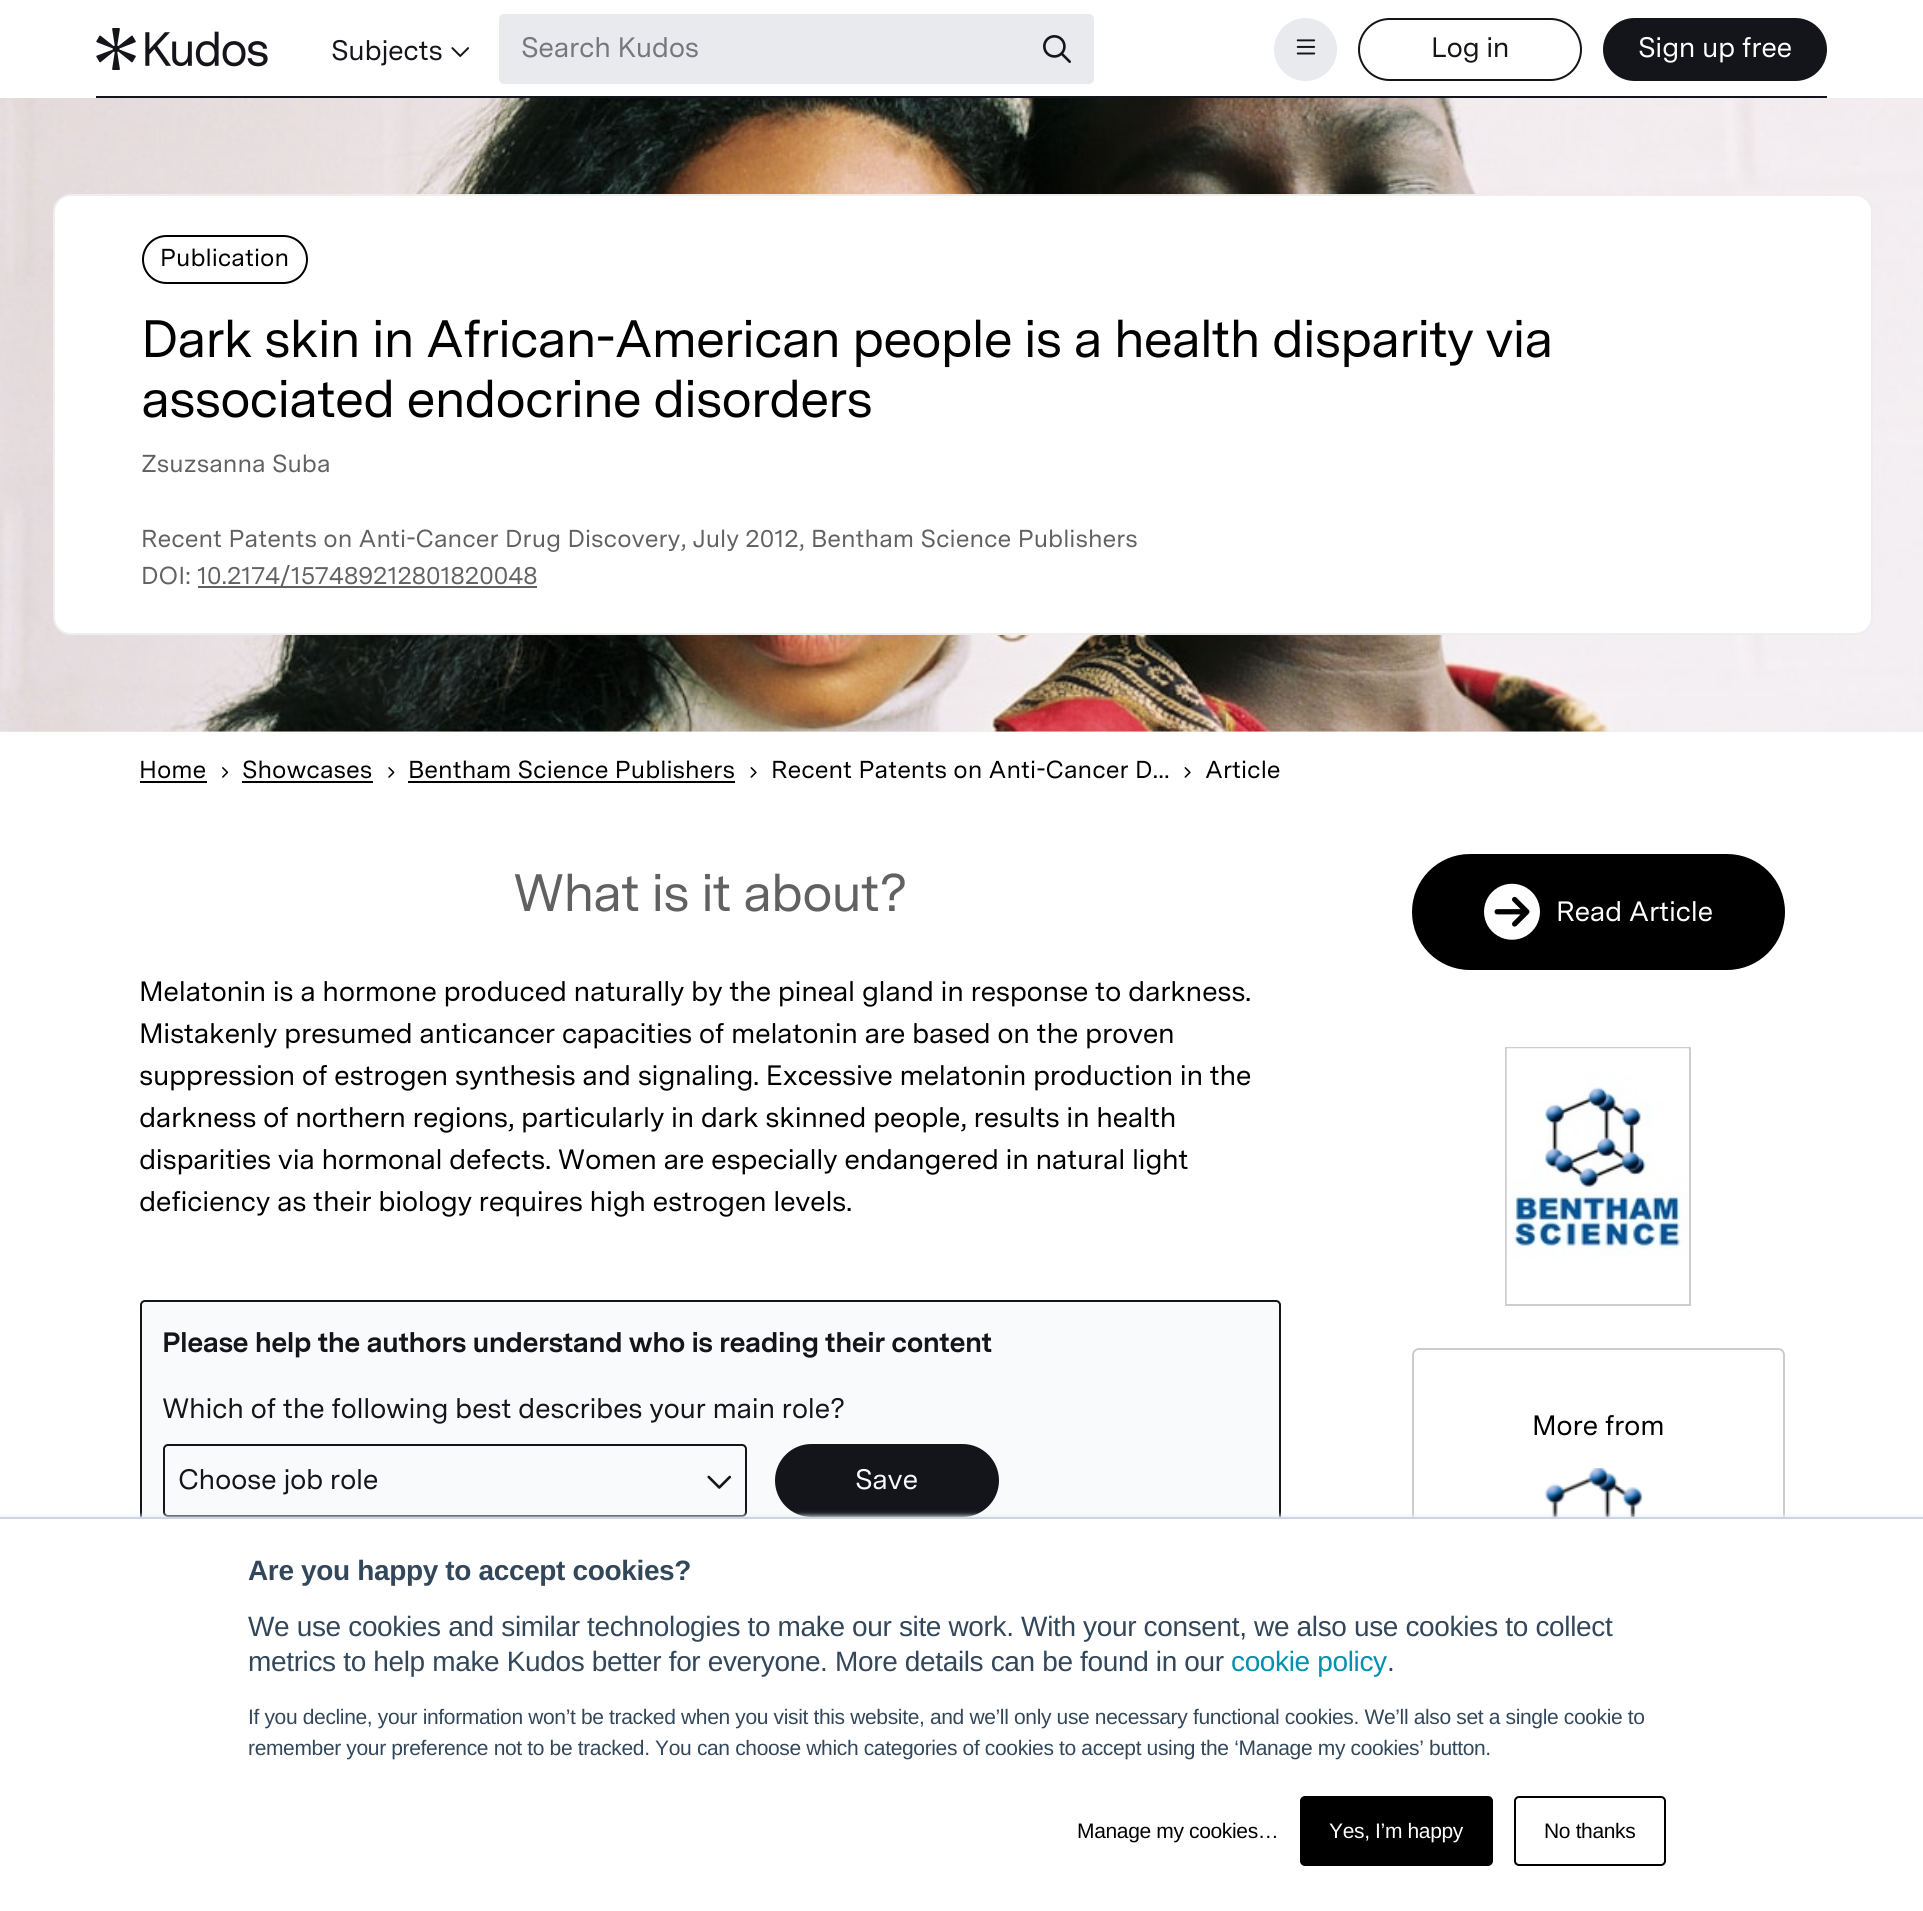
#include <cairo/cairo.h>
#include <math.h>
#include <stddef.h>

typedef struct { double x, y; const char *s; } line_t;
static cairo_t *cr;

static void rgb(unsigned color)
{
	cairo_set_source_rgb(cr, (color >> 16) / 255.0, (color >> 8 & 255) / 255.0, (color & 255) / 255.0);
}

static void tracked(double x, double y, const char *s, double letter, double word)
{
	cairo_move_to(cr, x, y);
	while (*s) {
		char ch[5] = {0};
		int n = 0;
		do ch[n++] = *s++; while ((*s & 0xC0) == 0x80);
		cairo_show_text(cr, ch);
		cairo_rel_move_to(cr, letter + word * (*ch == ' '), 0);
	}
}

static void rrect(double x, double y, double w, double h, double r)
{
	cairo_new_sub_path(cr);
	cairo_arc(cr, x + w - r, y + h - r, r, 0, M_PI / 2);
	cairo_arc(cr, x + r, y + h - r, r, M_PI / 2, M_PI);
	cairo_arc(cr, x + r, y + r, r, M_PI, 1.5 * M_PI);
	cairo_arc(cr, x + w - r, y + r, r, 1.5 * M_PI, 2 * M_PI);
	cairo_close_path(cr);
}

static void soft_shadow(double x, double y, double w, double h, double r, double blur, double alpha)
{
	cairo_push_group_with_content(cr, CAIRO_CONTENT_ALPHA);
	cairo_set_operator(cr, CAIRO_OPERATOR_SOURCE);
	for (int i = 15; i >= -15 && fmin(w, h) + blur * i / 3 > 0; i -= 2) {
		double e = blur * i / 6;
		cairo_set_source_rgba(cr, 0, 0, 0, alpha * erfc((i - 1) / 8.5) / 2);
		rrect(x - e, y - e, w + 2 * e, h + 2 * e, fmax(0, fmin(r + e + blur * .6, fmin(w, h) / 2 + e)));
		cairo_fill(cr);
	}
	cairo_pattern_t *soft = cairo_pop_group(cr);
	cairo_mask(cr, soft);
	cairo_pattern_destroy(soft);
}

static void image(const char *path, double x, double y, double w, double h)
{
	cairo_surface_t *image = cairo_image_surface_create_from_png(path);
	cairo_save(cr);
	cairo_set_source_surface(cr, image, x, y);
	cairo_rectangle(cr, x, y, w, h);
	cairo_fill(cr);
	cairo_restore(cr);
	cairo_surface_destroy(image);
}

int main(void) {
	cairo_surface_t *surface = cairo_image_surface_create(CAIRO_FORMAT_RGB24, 1923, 1911);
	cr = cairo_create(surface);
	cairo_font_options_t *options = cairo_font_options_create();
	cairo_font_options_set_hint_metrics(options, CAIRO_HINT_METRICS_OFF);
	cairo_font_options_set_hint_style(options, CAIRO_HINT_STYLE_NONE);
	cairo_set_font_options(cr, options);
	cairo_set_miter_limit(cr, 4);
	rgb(0xffffff);
	cairo_paint(cr);
	rgb(0x14141b);
	cairo_rectangle(cr, 96, 96, 1731, 2);
	cairo_fill(cr);
	image("img/1.png", 96, 28, 172, 42);
	image("img/2.png", 451, 47, 19, 10);
	rgb(0xe8eaed);
	rrect(499, 14, 595, 70, 5);
	cairo_fill(cr);
	image("img/3.png", 1043, 35, 28, 28);
	cairo_arc(cr, 1305.5, 49.5, 31.5, 0, 2 * M_PI);
	cairo_fill(cr);
	image("img/4.png", 1296, 39, 20, 16);
	rrect(1359, 19, 222, 61, 30.5);
	rgb(0x14141b);
	cairo_stroke(cr);
	rrect(1604, 19, 222, 61, 30.5);
	cairo_fill_preserve(cr);
	cairo_stroke(cr);
	rgb(0xedeeed);
	cairo_rectangle(cr, 0, 731, 1923, 1);
	cairo_fill(cr);
	image("img/5.png", 0, 98, 1923, 634);
	rgb(0xffffff);
	rrect(54, 195, 1818, 439, 17);
	cairo_fill_preserve(cr);
	rgb(0xedeeed);
	cairo_stroke(cr);
	rrect(143, 236, 164, 47, 23.5);
	rgb(0x000000);
	cairo_stroke(cr);
	rgb(0x616161);
	cairo_rectangle(cr, 198, 586, 339, 2);
	cairo_fill(cr);
	rgb(0x000000);
	cairo_rectangle(cr, 140, 781, 67, 2);
	cairo_fill(cr);
	image("img/6.png", 222, 767, 7, 11);
	cairo_rectangle(cr, 242, 781, 131, 2);
	cairo_fill(cr);
	image("img/7.png", 388, 767, 7, 11);
	cairo_rectangle(cr, 408, 781, 327, 2);
	cairo_fill(cr);
	image("img/8.png", 750, 767, 7, 11);
	image("img/8.png", 1184, 767, 7, 11);
	rgb(0xf9fafb);
	cairo_rectangle(cr, 140, 1300, 1141, 217);
	cairo_fill(cr);
	rrect(141, 1301, 1139, 291, 4);
	rgb(0x14141b);
	cairo_stroke(cr);
	rrect(164, 1445, 582, 71, 4);
	cairo_stroke(cr);
	image("img/9.png", 707, 1475, 24, 14);
	rrect(776, 1445, 222, 71, 35.5);
	cairo_fill_preserve(cr);
	cairo_stroke(cr);
	rgb(0x000000);
	rrect(1413, 855, 371, 114, 57);
	cairo_fill_preserve(cr);
	cairo_stroke(cr);
	image("img/10.png", 1484, 883, 56, 57);
	cairo_rectangle(cr, 1506, 1048, 184, 257);
	rgb(0xcdcdcd);
	cairo_stroke(cr);
	image("img/11.png", 1506, 1048, 183, 256);
	rrect(1413, 1349, 371, 458, 6);
	rgb(0xcccccc);
	cairo_stroke(cr);
	image("img/12.png", 1515, 1468, 165, 49);
	rgb(0xeaf0f6);
	soft_shadow(0, 1516, 1923, 393, 0, 2.5, 1);
	rgb(0xffffff);
	cairo_rectangle(cr, 0, 1519, 1923, 392);
	cairo_fill(cr);
	rgb(0xcbd6e2);
	cairo_rectangle(cr, 0, 1517, 1923, 2);
	cairo_fill(cr);
	rgb(0x000000);
	rrect(1301, 1797, 191, 68, 4);
	cairo_fill_preserve(cr);
	cairo_stroke(cr);
	rrect(1515, 1797, 150, 68, 4);
	cairo_stroke(cr);
	cairo_select_font_face(cr, "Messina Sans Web", CAIRO_FONT_SLANT_NORMAL, CAIRO_FONT_WEIGHT_NORMAL);
	cairo_set_font_size(cr, 28);
	rgb(0x14141b);
	tracked(331, 60, "Subjects", -0.35, 0);
	rgb(0x76767c);
	tracked(521, 57, "Search Kudos", -0.35, 0);
	rgb(0x14141b);
	tracked(1431, 57, "Log in", -0.35, 0);
	rgb(0xffffff);
	tracked(1638, 57, "Sign up free", -0.35, 0);
	cairo_set_font_size(cr, 24.5);
	rgb(0x000000);
	cairo_move_to(cr, 160, 266);
	cairo_show_text(cr, "Publication");
	cairo_set_font_size(cr, 52.5);
	tracked(141, 357, "Dark skin in African-American people is a health disparity via", -1.3, 0);
	tracked(141, 417, "associated endocrine disorders", -1.3, 0);
	cairo_set_font_size(cr, 24.5);
	rgb(0x616161);
	{
		static const line_t items[] = {
			{141, 472, "Zsuzsanna Suba"},
			{141, 547, "Recent Patents on Anti-Cancer Drug Discovery, July 2012, Bentham Science Publishers"},
			{141, 584, "DOI:"},
			{197, 584, "10.2174/157489212801820048"},
		};
		for (size_t i = 0; i < sizeof items / sizeof *items; i++) {
			cairo_move_to(cr, items[i].x, items[i].y);
			cairo_show_text(cr, items[i].s);
		}
	}
	rgb(0x000000);
	{
		static const line_t items[] = {
			{139, 778, "Home"},
			{242, 778, "Showcases"},
			{408, 778, "Bentham Science Publishers"},
			{771, 778, "Recent Patents on Anti-Cancer D…"},
			{1205, 778, "Article"},
		};
		for (size_t i = 0; i < sizeof items / sizeof *items; i++) {
			cairo_move_to(cr, items[i].x, items[i].y);
			cairo_show_text(cr, items[i].s);
		}
	}
	cairo_set_font_size(cr, 52.5);
	rgb(0x616161);
	tracked(513, 911, "What is it about?", -1.3, 0);
	cairo_set_font_size(cr, 28);
	rgb(0x000000);
	{
		static const line_t items[] = {
			{139, 1001, "Melatonin is a hormone produced naturally by the pineal gland in response to darkness."},
			{139, 1043, "Mistakenly presumed anticancer capacities of melatonin are based on the proven"},
			{139, 1085, "suppression of estrogen synthesis and signaling. Excessive melatonin production in the"},
			{139, 1127, "darkness of northern regions, particularly in dark skinned people, results in health"},
			{139, 1169, "disparities via hormonal defects. Women are especially endangered in natural light"},
			{139, 1211, "deficiency as their biology requires high estrogen levels."},
		};
		for (size_t i = 0; i < sizeof items / sizeof *items; i++) {
			tracked(items[i].x, items[i].y, items[i].s, -0.35, 0);
		}
	}
	cairo_select_font_face(cr, "Messina Sans Web", CAIRO_FONT_SLANT_NORMAL, CAIRO_FONT_WEIGHT_BOLD);
	rgb(0x14141b);
	tracked(162, 1352, "Please help the authors understand who is reading their content", -0.53, 0);
	cairo_select_font_face(cr, "Messina Sans Web", CAIRO_FONT_SLANT_NORMAL, CAIRO_FONT_WEIGHT_NORMAL);
	tracked(162, 1418, "Which of the following best describes your main role?", -0.35, 0);
	tracked(178, 1489, "Choose job role", -0.35, 0);
	rgb(0xf9fafb);
	tracked(855, 1489, "Save", -0.35, 0);
	rgb(0xffffff);
	tracked(1556, 921, "Read Article", -0.35, 0);
	rgb(0x000000);
	tracked(1532, 1435, "More from", -0.35, 0);
	cairo_select_font_face(cr, "Liberation Sans", CAIRO_FONT_SLANT_NORMAL, CAIRO_FONT_WEIGHT_BOLD);
	rgb(0x33475b);
	tracked(248, 1580, "Are you happy to accept cookies?", -0.35, 0);
	cairo_select_font_face(cr, "Liberation Sans", CAIRO_FONT_SLANT_NORMAL, CAIRO_FONT_WEIGHT_NORMAL);
	tracked(248, 1636, "We use cookies and similar technologies to make our site work. With your consent, we also use cookies to collect", -0.35, 0);
	tracked(248, 1671, "metrics to help make Kudos better for everyone. More details can be found in our", -0.35, 0);
	rgb(0x0091ae);
	tracked(1231, 1671, "cookie policy", -0.35, 0);
	rgb(0x33475b);
	tracked(1387, 1671, ".", -0.35, 0);
	cairo_set_font_size(cr, 21);
	tracked(248, 1724, "If you decline, your information won’t be tracked when you visit this website, and we’ll only use necessary functional cookies. We’ll also set a single cookie to", -0.35, 0);
	tracked(248, 1755, "remember your preference not to be tracked. You can choose which categories of cookies to accept using the ‘Manage my cookies’ button.", -0.35, 0);
	rgb(0x000000);
	tracked(1077, 1838, "Manage my cookies…", -0.35, 0);
	rgb(0xffffff);
	tracked(1329, 1838, "Yes, I’m happy", -0.35, 0);
	rgb(0x000000);
	tracked(1544, 1838, "No thanks", -0.35, 0);
	cairo_surface_write_to_png(surface, "page.png");
	cairo_font_options_destroy(options);
	cairo_destroy(cr);
	cairo_surface_destroy(surface);
	return 0;
}
